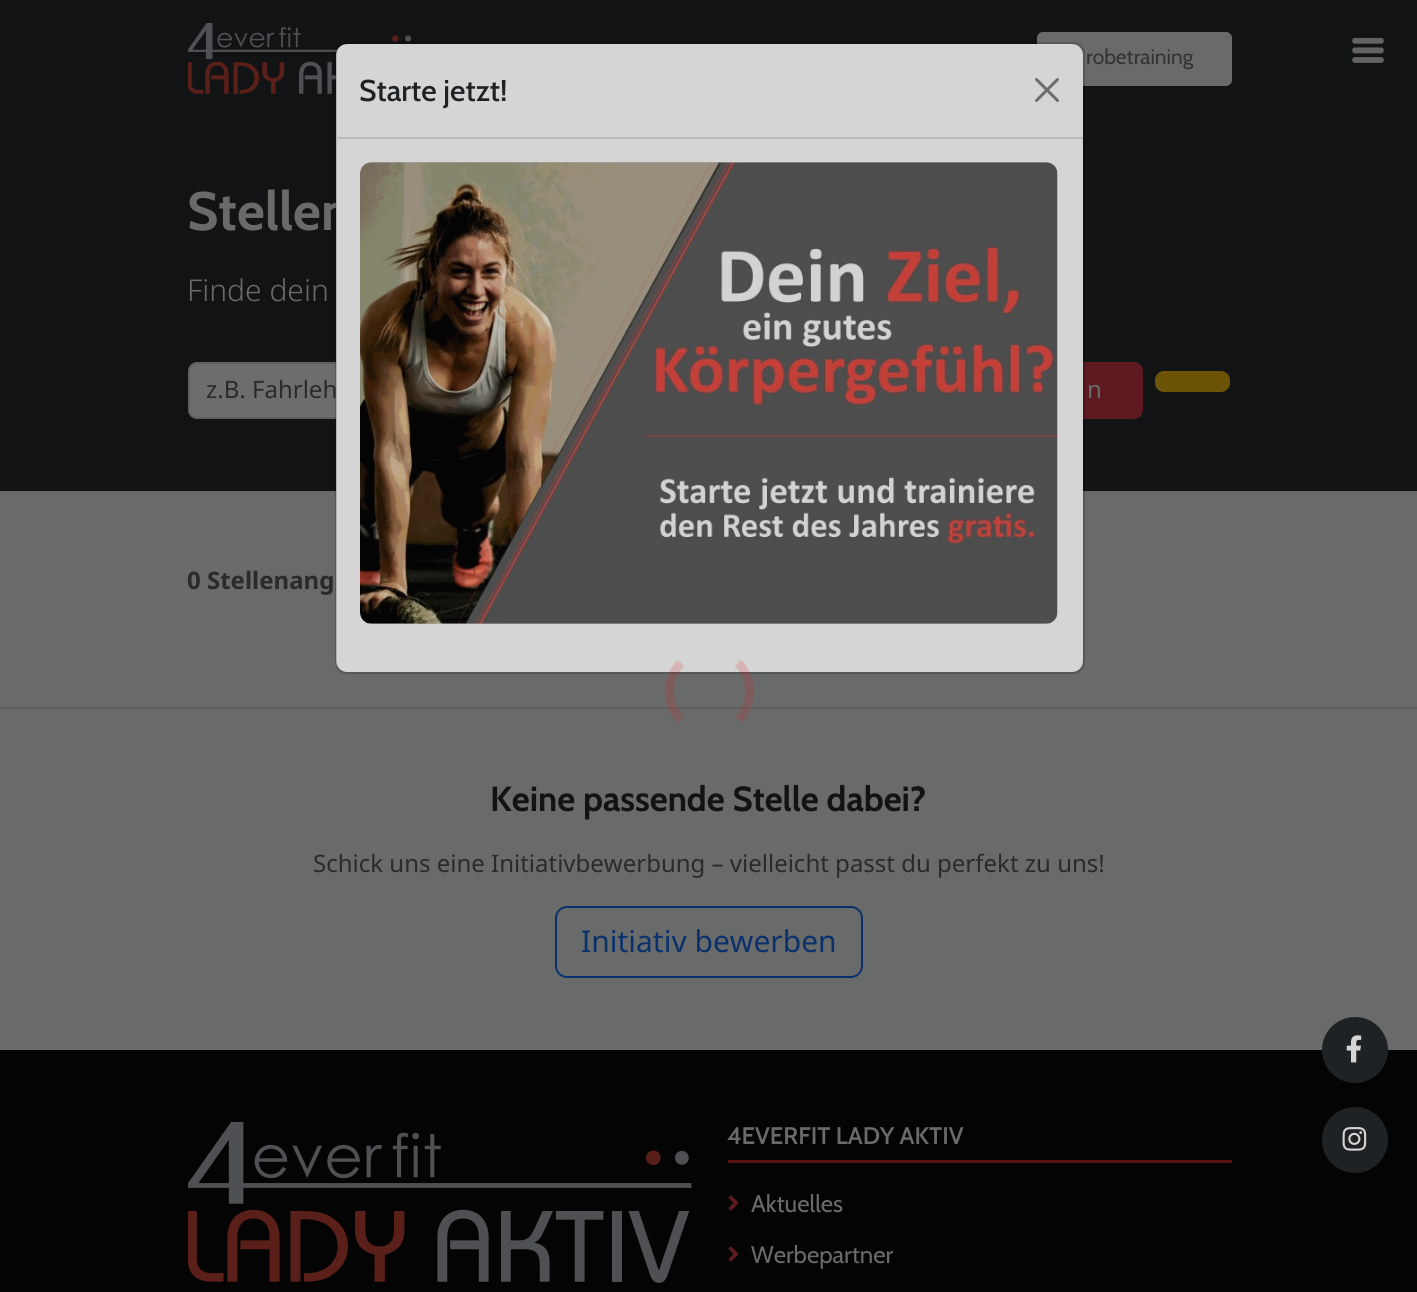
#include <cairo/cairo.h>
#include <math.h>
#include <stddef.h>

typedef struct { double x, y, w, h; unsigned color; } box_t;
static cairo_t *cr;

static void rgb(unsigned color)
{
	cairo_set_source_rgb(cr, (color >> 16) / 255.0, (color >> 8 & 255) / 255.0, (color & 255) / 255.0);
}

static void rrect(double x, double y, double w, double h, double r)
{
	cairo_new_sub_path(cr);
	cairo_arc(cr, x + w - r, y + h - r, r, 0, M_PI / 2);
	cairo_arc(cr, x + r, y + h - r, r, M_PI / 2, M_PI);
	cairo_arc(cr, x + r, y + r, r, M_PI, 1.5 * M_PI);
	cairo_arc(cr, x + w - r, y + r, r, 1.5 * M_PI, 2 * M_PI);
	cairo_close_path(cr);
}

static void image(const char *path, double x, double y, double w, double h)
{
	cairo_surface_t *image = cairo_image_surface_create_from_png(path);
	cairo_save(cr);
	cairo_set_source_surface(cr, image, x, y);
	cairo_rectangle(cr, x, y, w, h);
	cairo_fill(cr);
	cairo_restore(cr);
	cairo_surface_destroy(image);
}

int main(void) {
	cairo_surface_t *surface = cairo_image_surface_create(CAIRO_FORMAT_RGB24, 1417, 1292);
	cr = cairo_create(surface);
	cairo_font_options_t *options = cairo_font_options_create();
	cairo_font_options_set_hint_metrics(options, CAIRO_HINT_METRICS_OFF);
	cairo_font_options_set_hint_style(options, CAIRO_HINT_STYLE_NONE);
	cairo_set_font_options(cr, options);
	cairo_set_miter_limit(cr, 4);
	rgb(0x040404);
	cairo_paint(cr);
	rgb(0x121315);
	cairo_rectangle(cr, 0, 0, 1417, 491);
	cairo_fill(cr);
	image("img/1.png", 188, 23, 223, 71);
	rgb(0x696a6a);
	rrect(1037, 32, 195, 54, 6);
	cairo_fill(cr);
	image("img/2.png", 1352, 37, 32, 26);
	rgb(0x6d6d6d);
	rrect(189, 363, 425, 55, 8);
	cairo_fill_preserve(cr);
	rgb(0x5f6062);
	cairo_stroke(cr);
	rgb(0x5e1a20);
	rrect(979, 363, 163, 55, 8);
	cairo_fill_preserve(cr);
	cairo_stroke(cr);
	rgb(0x6d5307);
	rrect(1156, 372, 73, 19, 8);
	cairo_fill_preserve(cr);
	cairo_stroke(cr);
	{
		static const box_t items[] = {
			{0, 491, 1417, 216, 0x696a6a},
			{0, 709, 1417, 341, 0x696a6a},
			{0, 707, 1417, 2, 0x5f6062},
		};
		for (size_t i = 0; i < sizeof items / sizeof *items; i++) {
			rgb(items[i].color);
			cairo_rectangle(cr, items[i].x, items[i].y, items[i].w, items[i].h);
			cairo_fill(cr);
		}
	}
	rrect(556, 907, 306, 70, 11);
	rgb(0x0a316c);
	cairo_stroke(cr);
	rgb(0x1f2225);
	cairo_arc(cr, 1355, 1050, 32, 0, 2 * M_PI);
	cairo_fill_preserve(cr);
	cairo_stroke(cr);
	image("img/5.png", 1346, 1035, 16, 28);
	cairo_arc(cr, 1355, 1140, 32, 0, 2 * M_PI);
	cairo_fill_preserve(cr);
	cairo_stroke(cr);
	image("img/6.png", 1342, 1127, 25, 24);
	image("img/7.png", 188, 1122, 504, 161);
	rgb(0x5d130f);
	cairo_rectangle(cr, 728, 1160, 504, 3);
	cairo_fill(cr);
	image("img/8.png", 728, 1195, 11, 16);
	image("img/8.png", 728, 1246, 11, 16);
	cairo_select_font_face(cr, "Cabin", CAIRO_FONT_SLANT_NORMAL, CAIRO_FONT_WEIGHT_NORMAL);
	cairo_set_font_size(cr, 21);
	rgb(0x333333);
	cairo_move_to(cr, 1086, 64);
	cairo_show_text(cr, "robetraining");
	cairo_select_font_face(cr, "Cabin", CAIRO_FONT_SLANT_NORMAL, CAIRO_FONT_WEIGHT_BOLD);
	cairo_set_font_size(cr, 54);
	rgb(0x696a6a);
	cairo_move_to(cr, 187, 230);
	cairo_show_text(cr, "Stellen");
	rgb(0xd5d5d5);
	rrect(336, 44, 747, 628, 11);
	cairo_fill(cr);
	cairo_select_font_face(cr, "Noto Sans Light", CAIRO_FONT_SLANT_NORMAL, CAIRO_FONT_WEIGHT_NORMAL);
	cairo_set_font_size(cr, 30);
	rgb(0x696a6a);
	cairo_move_to(cr, 187, 301);
	cairo_show_text(cr, "Finde dein");
	cairo_select_font_face(cr, "Noto Sans", CAIRO_FONT_SLANT_NORMAL, CAIRO_FONT_WEIGHT_NORMAL);
	cairo_set_font_size(cr, 24);
	rgb(0x292a2b);
	cairo_move_to(cr, 206, 398);
	cairo_show_text(cr, "z.B. Fahrleh");
	rrect(336, 43, 748, 630, 11);
	cairo_set_source_rgba(cr, 0.016, 0.016, 0.016, 0.18);
	cairo_stroke(cr);
	image("img/4.png", 360, 162, 698, 462);
	image("img/3.png", 1035, 78, 24, 24);
	cairo_select_font_face(cr, "Cabin Medium", CAIRO_FONT_SLANT_NORMAL, CAIRO_FONT_WEIGHT_NORMAL);
	cairo_set_font_size(cr, 30);
	rgb(0x1f2225);
	cairo_move_to(cr, 359, 101);
	cairo_show_text(cr, "Starte jetzt!");
	rgb(0xbabdc0);
	cairo_rectangle(cr, 336, 137, 747, 2);
	cairo_fill(cr);
	cairo_select_font_face(cr, "Noto Sans", CAIRO_FONT_SLANT_NORMAL, CAIRO_FONT_WEIGHT_NORMAL);
	cairo_set_font_size(cr, 24);
	rgb(0x696a6a);
	cairo_move_to(cr, 1087, 398);
	cairo_show_text(cr, "n");
	cairo_select_font_face(cr, "Noto Sans", CAIRO_FONT_SLANT_NORMAL, CAIRO_FONT_WEIGHT_BOLD);
	rgb(0x292a2b);
	cairo_move_to(cr, 187, 589);
	cairo_show_text(cr, "0 Stellenang");
	cairo_select_font_face(cr, "Cabin", CAIRO_FONT_SLANT_NORMAL, CAIRO_FONT_WEIGHT_BOLD);
	cairo_set_font_size(cr, 34.8);
	rgb(0x121315);
	cairo_move_to(cr, 490, 811);
	cairo_show_text(cr, "Keine passende Stelle dabei?");
	cairo_select_font_face(cr, "Noto Sans", CAIRO_FONT_SLANT_NORMAL, CAIRO_FONT_WEIGHT_NORMAL);
	cairo_set_font_size(cr, 24);
	rgb(0x292a2b);
	cairo_move_to(cr, 313, 872);
	cairo_show_text(cr, "Schick uns eine Initiativbewerbung – vielleicht passt du perfekt zu uns!");
	cairo_set_font_size(cr, 30);
	rgb(0x0a316c);
	cairo_move_to(cr, 581, 952);
	cairo_show_text(cr, "Initiativ bewerben");
	cairo_new_path(cr);
	cairo_move_to(cr, 738, 663);
	cairo_curve_to(cr, 753.5, 678.5, 753.5, 704.5, 738, 720);
	cairo_set_source_rgba(cr, 0.855, 0.145, 0.11, 0.18);
	cairo_set_line_width(cr, 9);
	cairo_stroke(cr);
	cairo_new_path(cr);
	cairo_move_to(cr, 738, 720);
	cairo_curve_to(cr, 722.5, 735.5, 696.5, 735.5, 681, 720);
	rgb(0x696a6a);
	cairo_stroke(cr);
	cairo_new_path(cr);
	cairo_move_to(cr, 681, 720);
	cairo_curve_to(cr, 665.5, 704.5, 665.5, 678.5, 681, 663);
	cairo_set_source_rgba(cr, 0.855, 0.145, 0.11, 0.18);
	cairo_stroke(cr);
	cairo_select_font_face(cr, "Cabin SemiBold", CAIRO_FONT_SLANT_NORMAL, CAIRO_FONT_WEIGHT_NORMAL);
	cairo_set_font_size(cr, 24);
	rgb(0x696a6a);
	cairo_move_to(cr, 727, 1144);
	cairo_show_text(cr, "4EVERFIT LADY AKTIV");
	cairo_select_font_face(cr, "Cabin", CAIRO_FONT_SLANT_NORMAL, CAIRO_FONT_WEIGHT_NORMAL);
	cairo_move_to(cr, 751, 1212);
	cairo_show_text(cr, "Aktuelles");
	cairo_move_to(cr, 751, 1263);
	cairo_show_text(cr, "Werbepartner");
	cairo_surface_write_to_png(surface, "page.png");
	cairo_font_options_destroy(options);
	cairo_destroy(cr);
	cairo_surface_destroy(surface);
	return 0;
}
